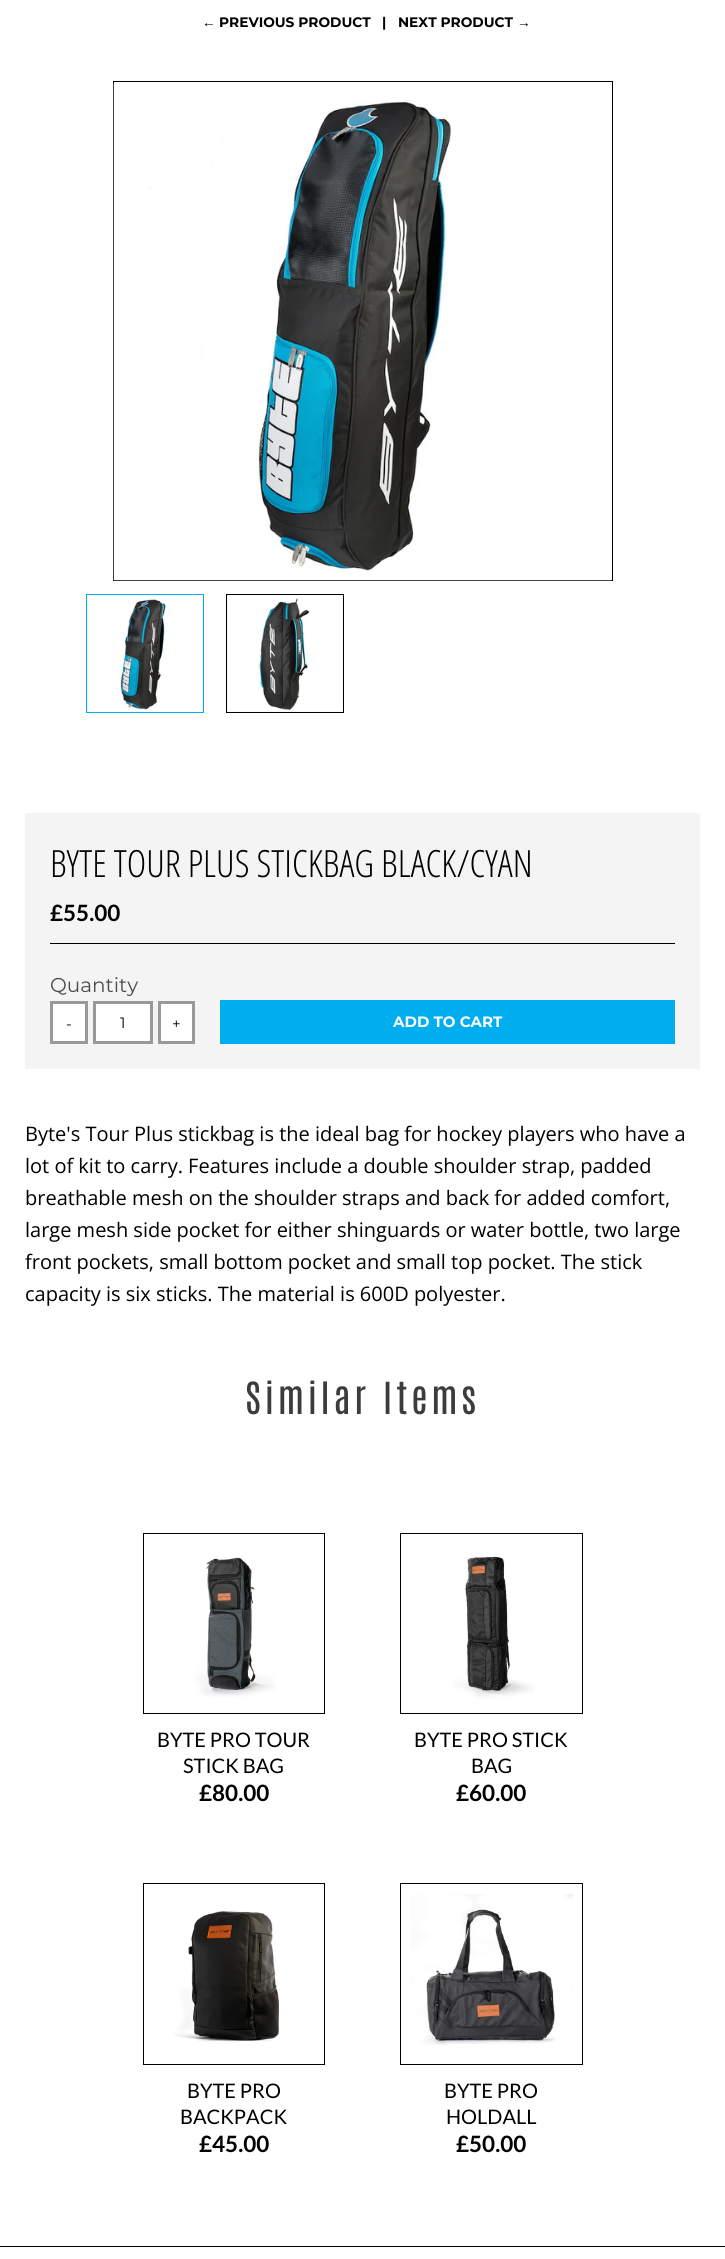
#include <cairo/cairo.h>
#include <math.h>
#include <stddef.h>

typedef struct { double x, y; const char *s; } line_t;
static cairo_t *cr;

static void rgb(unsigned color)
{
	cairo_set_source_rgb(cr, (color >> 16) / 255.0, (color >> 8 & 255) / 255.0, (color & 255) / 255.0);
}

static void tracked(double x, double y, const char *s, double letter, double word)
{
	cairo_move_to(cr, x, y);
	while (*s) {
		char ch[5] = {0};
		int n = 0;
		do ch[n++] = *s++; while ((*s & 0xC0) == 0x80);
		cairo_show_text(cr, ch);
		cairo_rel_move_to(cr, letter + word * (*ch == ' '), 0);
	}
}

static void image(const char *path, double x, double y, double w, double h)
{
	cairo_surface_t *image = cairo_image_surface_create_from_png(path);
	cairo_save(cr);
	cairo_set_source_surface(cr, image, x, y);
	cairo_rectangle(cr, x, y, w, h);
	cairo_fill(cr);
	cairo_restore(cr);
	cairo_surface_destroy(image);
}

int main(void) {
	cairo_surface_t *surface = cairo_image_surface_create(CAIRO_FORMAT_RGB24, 725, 2259);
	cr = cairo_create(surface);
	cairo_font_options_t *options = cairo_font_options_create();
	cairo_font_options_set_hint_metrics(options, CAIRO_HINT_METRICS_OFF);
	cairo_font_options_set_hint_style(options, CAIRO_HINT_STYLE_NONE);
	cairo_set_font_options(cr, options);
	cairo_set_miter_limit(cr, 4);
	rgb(0xffffff);
	cairo_paint(cr);
	rgb(0x000000);
	cairo_rectangle(cr, 0, 2246, 725, 1);
	cairo_fill(cr);
	cairo_rectangle(cr, 113.5, 81.5, 499, 499);
	cairo_set_line_width(cr, 1);
	cairo_stroke(cr);
	image("img/1.png", 113, 82, 499, 499);
	rgb(0xf8f8f8);
	cairo_rectangle(cr, 86.5, 594.5, 117, 118);
	cairo_fill_preserve(cr);
	rgb(0x00aeef);
	cairo_stroke(cr);
	image("img/2.png", 88, 595, 114, 116);
	rgb(0xf8f8f8);
	cairo_rectangle(cr, 226.5, 594.5, 117, 118);
	cairo_fill_preserve(cr);
	rgb(0x000000);
	cairo_stroke(cr);
	image("img/3.png", 228, 595, 114, 116);
	rgb(0xf4f4f4);
	cairo_rectangle(cr, 25, 813, 675, 256);
	cairo_fill(cr);
	rgb(0x000000);
	cairo_rectangle(cr, 50, 943, 625, 1);
	cairo_fill(cr);
	rgb(0xffffff);
	cairo_rectangle(cr, 51.5, 1002.5, 35, 40);
	cairo_fill_preserve(cr);
	rgb(0x999999);
	cairo_set_line_width(cr, 3);
	cairo_stroke(cr);
	rgb(0xffffff);
	cairo_rectangle(cr, 94.5, 1002.5, 57, 40);
	cairo_fill_preserve(cr);
	rgb(0x999999);
	cairo_stroke(cr);
	rgb(0xffffff);
	cairo_rectangle(cr, 159.5, 1002.5, 34, 40);
	cairo_fill_preserve(cr);
	rgb(0x999999);
	cairo_stroke(cr);
	rgb(0x00aef0);
	cairo_rectangle(cr, 220, 1000, 455, 44);
	cairo_fill(cr);
	cairo_rectangle(cr, 143.5, 1533.5, 181, 180);
	rgb(0x000000);
	cairo_set_line_width(cr, 1);
	cairo_stroke(cr);
	image("img/4.png", 195, 1557, 81, 140);
	cairo_rectangle(cr, 400.5, 1533.5, 182, 180);
	cairo_stroke(cr);
	image("img/5.png", 453, 1556, 81, 143);
	cairo_rectangle(cr, 143.5, 1883.5, 181, 181);
	cairo_stroke(cr);
	image("img/6.png", 173, 1911, 107, 131);
	cairo_rectangle(cr, 400.5, 1883.5, 182, 181);
	cairo_stroke(cr);
	image("img/7.png", 410, 1894, 163, 151);
	cairo_select_font_face(cr, "Liberation Sans", CAIRO_FONT_SLANT_NORMAL, CAIRO_FONT_WEIGHT_BOLD);
	cairo_set_font_size(cr, 13.75);
	cairo_move_to(cr, 202, 27);
	cairo_show_text(cr, "←");
	cairo_select_font_face(cr, "Montserrat", CAIRO_FONT_SLANT_NORMAL, CAIRO_FONT_WEIGHT_BOLD);
	{
		static const line_t items[] = {
			{219, 27, "PREVIOUS PRODUCT"},
			{382, 27, "|"},
			{398, 27, "NEXT PRODUCT"},
		};
		for (size_t i = 0; i < sizeof items / sizeof *items; i++) {
			cairo_move_to(cr, items[i].x, items[i].y);
			cairo_show_text(cr, items[i].s);
		}
	}
	cairo_select_font_face(cr, "Liberation Sans", CAIRO_FONT_SLANT_NORMAL, CAIRO_FONT_WEIGHT_BOLD);
	cairo_move_to(cr, 517, 27);
	cairo_show_text(cr, "→");
	cairo_select_font_face(cr, "Open Sans Condensed Light", CAIRO_FONT_SLANT_NORMAL, CAIRO_FONT_WEIGHT_NORMAL);
	cairo_set_font_size(cr, 37.5);
	cairo_move_to(cr, 50, 877);
	cairo_show_text(cr, "BYTE TOUR PLUS STICKBAG BLACK/CYAN");
	cairo_select_font_face(cr, "Lato", CAIRO_FONT_SLANT_NORMAL, CAIRO_FONT_WEIGHT_BOLD);
	cairo_set_font_size(cr, 22.5);
	cairo_move_to(cr, 50, 921);
	cairo_show_text(cr, "£55.00");
	cairo_select_font_face(cr, "Montserrat", CAIRO_FONT_SLANT_NORMAL, CAIRO_FONT_WEIGHT_NORMAL);
	cairo_set_font_size(cr, 20);
	rgb(0x4c4c4c);
	cairo_move_to(cr, 50, 992);
	cairo_show_text(cr, "Quantity");
	cairo_set_font_size(cr, 15);
	rgb(0x000000);
	{
		static const line_t items[] = {
			{66, 1029, "-"},
			{120, 1028, "1"},
			{172, 1029, "+"},
		};
		for (size_t i = 0; i < sizeof items / sizeof *items; i++) {
			cairo_move_to(cr, items[i].x, items[i].y);
			cairo_show_text(cr, items[i].s);
		}
	}
	cairo_select_font_face(cr, "Montserrat", CAIRO_FONT_SLANT_NORMAL, CAIRO_FONT_WEIGHT_BOLD);
	rgb(0xffffff);
	cairo_move_to(cr, 393, 1027);
	cairo_show_text(cr, "ADD TO CART");
	cairo_select_font_face(cr, "Open Sans", CAIRO_FONT_SLANT_NORMAL, CAIRO_FONT_WEIGHT_NORMAL);
	cairo_set_font_size(cr, 20);
	rgb(0x000000);
	{
		static const line_t items[] = {
			{25, 1141, "Byte's Tour Plus stickbag is the ideal bag for hockey players who have a"},
			{25, 1173, "lot of kit to carry. Features include a double shoulder strap, padded"},
			{25, 1205, "breathable mesh on the shoulder straps and back for added comfort,"},
			{25, 1237, "large mesh side pocket for either shinguards or water bottle, two large"},
			{25, 1269, "front pockets, small bottom pocket and small top pocket. The stick"},
			{25, 1301, "capacity is six sticks. The material is 600D polyester."},
		};
		for (size_t i = 0; i < sizeof items / sizeof *items; i++) {
			cairo_move_to(cr, items[i].x, items[i].y);
			cairo_show_text(cr, items[i].s);
		}
	}
	cairo_select_font_face(cr, "Antonio", CAIRO_FONT_SLANT_NORMAL, CAIRO_FONT_WEIGHT_NORMAL);
	cairo_set_font_size(cr, 37.5);
	rgb(0x3c3c3c);
	tracked(245, 1414, "Similar Items", 3.75, 0);
	cairo_select_font_face(cr, "Lato", CAIRO_FONT_SLANT_NORMAL, CAIRO_FONT_WEIGHT_NORMAL);
	cairo_set_font_size(cr, 20);
	rgb(0x000000);
	cairo_move_to(cr, 157, 1747);
	cairo_show_text(cr, "BYTE PRO TOUR");
	cairo_move_to(cr, 183, 1773);
	cairo_show_text(cr, "STICK BAG");
	cairo_select_font_face(cr, "Lato", CAIRO_FONT_SLANT_NORMAL, CAIRO_FONT_WEIGHT_BOLD);
	cairo_set_font_size(cr, 22.5);
	cairo_move_to(cr, 199, 1801);
	cairo_show_text(cr, "£80.00");
	cairo_select_font_face(cr, "Lato", CAIRO_FONT_SLANT_NORMAL, CAIRO_FONT_WEIGHT_NORMAL);
	cairo_set_font_size(cr, 20);
	cairo_move_to(cr, 414, 1747);
	cairo_show_text(cr, "BYTE PRO STICK");
	cairo_move_to(cr, 471, 1773);
	cairo_show_text(cr, "BAG");
	cairo_select_font_face(cr, "Lato", CAIRO_FONT_SLANT_NORMAL, CAIRO_FONT_WEIGHT_BOLD);
	cairo_set_font_size(cr, 22.5);
	cairo_move_to(cr, 456, 1801);
	cairo_show_text(cr, "£60.00");
	cairo_select_font_face(cr, "Lato", CAIRO_FONT_SLANT_NORMAL, CAIRO_FONT_WEIGHT_NORMAL);
	cairo_set_font_size(cr, 20);
	cairo_move_to(cr, 187, 2098);
	cairo_show_text(cr, "BYTE PRO");
	cairo_move_to(cr, 180, 2124);
	cairo_show_text(cr, "BACKPACK");
	cairo_select_font_face(cr, "Lato", CAIRO_FONT_SLANT_NORMAL, CAIRO_FONT_WEIGHT_BOLD);
	cairo_set_font_size(cr, 22.5);
	cairo_move_to(cr, 199, 2152);
	cairo_show_text(cr, "£45.00");
	cairo_select_font_face(cr, "Lato", CAIRO_FONT_SLANT_NORMAL, CAIRO_FONT_WEIGHT_NORMAL);
	cairo_set_font_size(cr, 20);
	cairo_move_to(cr, 444, 2098);
	cairo_show_text(cr, "BYTE PRO");
	cairo_move_to(cr, 446, 2124);
	cairo_show_text(cr, "HOLDALL");
	cairo_select_font_face(cr, "Lato", CAIRO_FONT_SLANT_NORMAL, CAIRO_FONT_WEIGHT_BOLD);
	cairo_set_font_size(cr, 22.5);
	cairo_move_to(cr, 456, 2152);
	cairo_show_text(cr, "£50.00");
	cairo_surface_write_to_png(surface, "page.png");
	cairo_font_options_destroy(options);
	cairo_destroy(cr);
	cairo_surface_destroy(surface);
	return 0;
}
